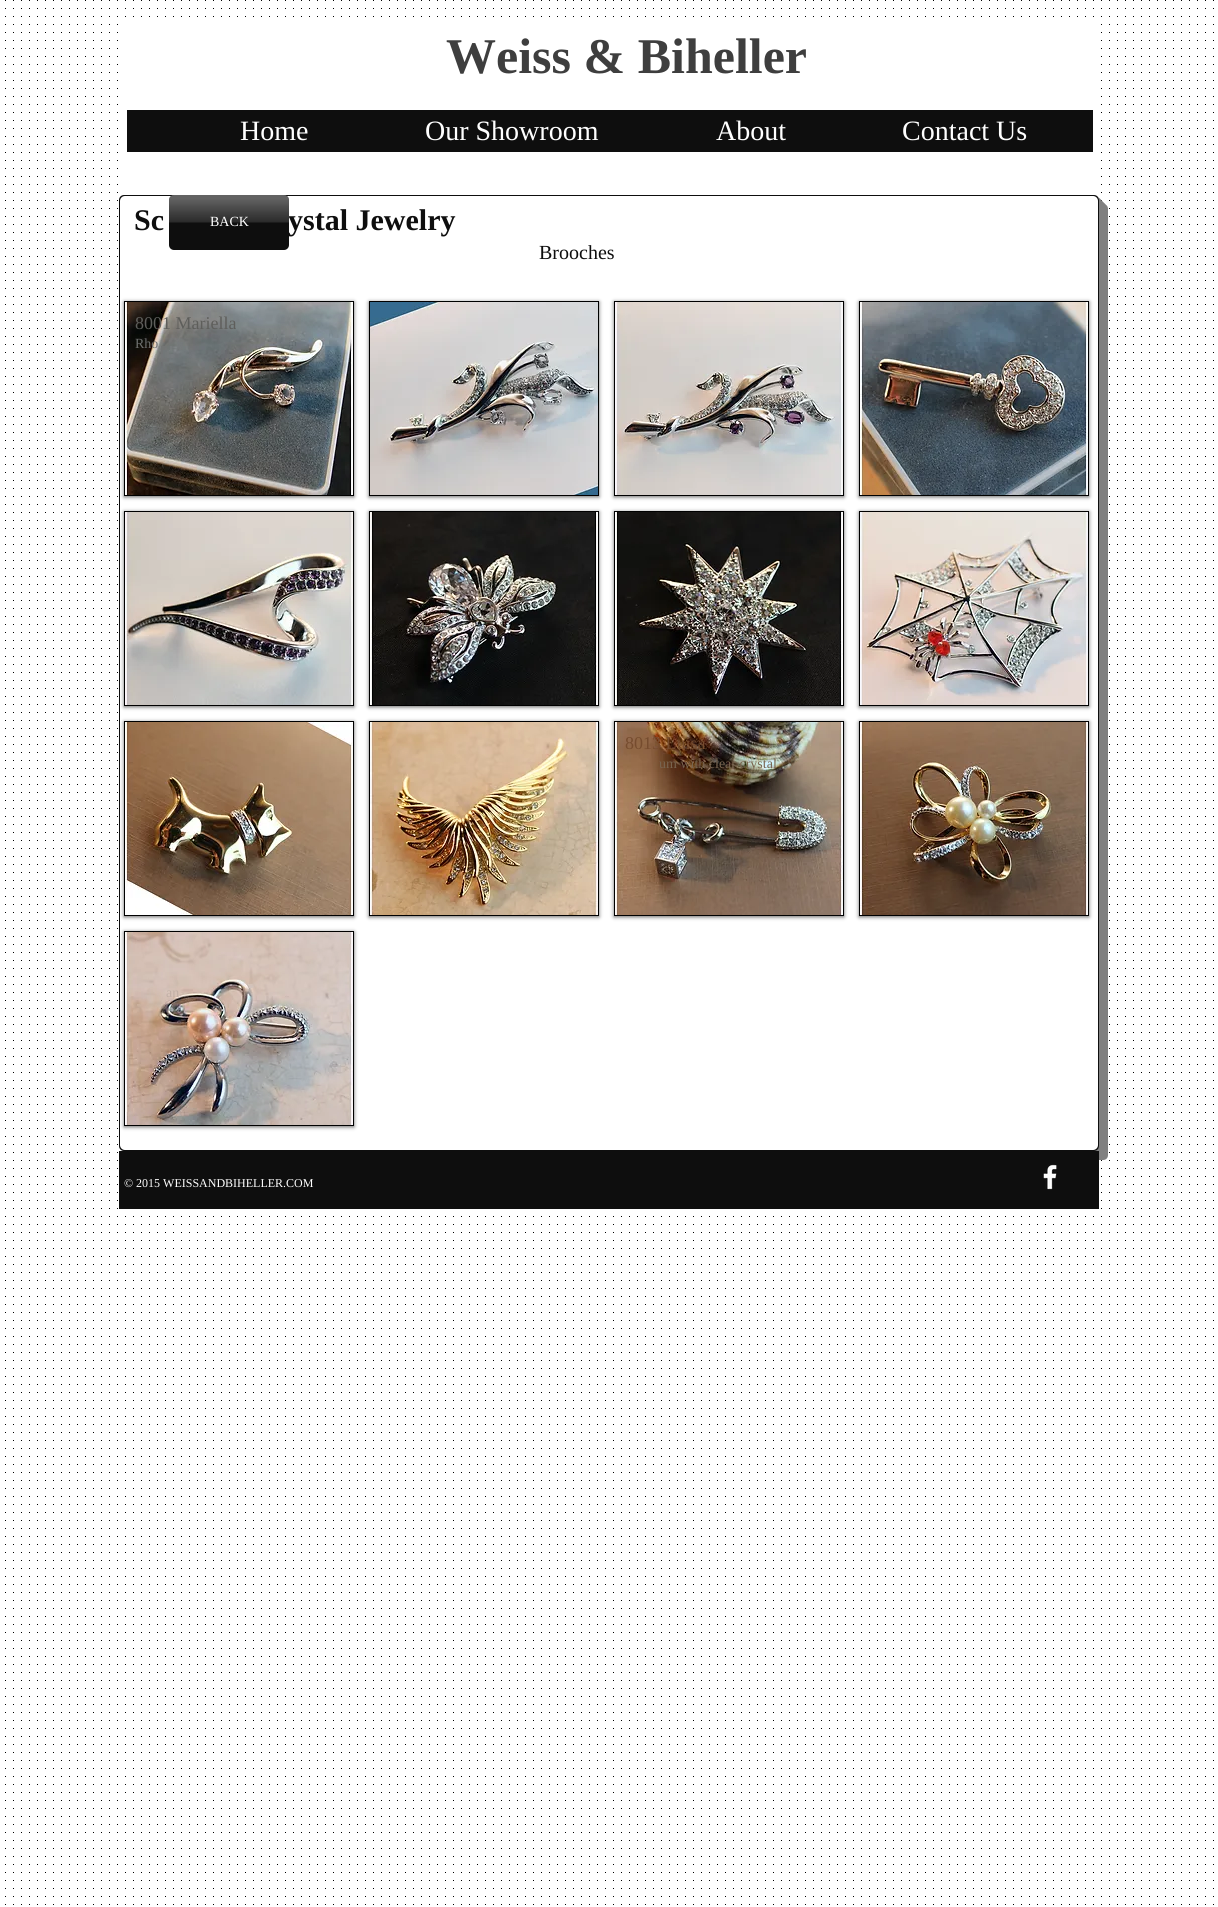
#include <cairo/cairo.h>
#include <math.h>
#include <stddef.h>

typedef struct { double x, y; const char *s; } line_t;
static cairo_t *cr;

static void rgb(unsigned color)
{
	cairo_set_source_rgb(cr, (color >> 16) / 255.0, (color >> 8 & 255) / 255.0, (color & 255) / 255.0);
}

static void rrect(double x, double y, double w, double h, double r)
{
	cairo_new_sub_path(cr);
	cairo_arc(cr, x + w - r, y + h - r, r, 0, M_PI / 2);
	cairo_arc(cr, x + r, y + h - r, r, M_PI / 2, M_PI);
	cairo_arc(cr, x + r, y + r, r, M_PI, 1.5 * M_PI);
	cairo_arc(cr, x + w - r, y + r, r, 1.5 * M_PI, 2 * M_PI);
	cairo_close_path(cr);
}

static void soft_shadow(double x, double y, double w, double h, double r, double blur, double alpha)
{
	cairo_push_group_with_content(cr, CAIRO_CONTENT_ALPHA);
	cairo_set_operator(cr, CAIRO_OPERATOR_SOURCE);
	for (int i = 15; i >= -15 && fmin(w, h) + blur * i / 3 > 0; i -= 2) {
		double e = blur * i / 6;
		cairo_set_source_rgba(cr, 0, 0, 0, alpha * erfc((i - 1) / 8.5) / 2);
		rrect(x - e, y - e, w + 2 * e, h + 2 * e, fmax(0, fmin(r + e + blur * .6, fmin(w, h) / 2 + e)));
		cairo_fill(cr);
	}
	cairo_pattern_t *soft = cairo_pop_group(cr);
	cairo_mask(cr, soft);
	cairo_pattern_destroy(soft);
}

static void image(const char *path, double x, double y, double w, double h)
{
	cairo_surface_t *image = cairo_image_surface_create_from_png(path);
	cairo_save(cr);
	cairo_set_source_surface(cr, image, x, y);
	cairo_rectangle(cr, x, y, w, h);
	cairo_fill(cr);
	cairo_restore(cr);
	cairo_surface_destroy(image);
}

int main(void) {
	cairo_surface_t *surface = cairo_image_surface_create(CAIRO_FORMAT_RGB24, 1218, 1907);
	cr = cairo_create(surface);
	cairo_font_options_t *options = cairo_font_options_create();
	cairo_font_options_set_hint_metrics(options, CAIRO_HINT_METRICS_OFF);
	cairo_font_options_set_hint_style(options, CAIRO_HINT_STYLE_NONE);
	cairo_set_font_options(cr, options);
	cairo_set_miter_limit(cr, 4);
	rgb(0xffffff);
	cairo_paint(cr);
	image("img/1.png", 5, 0, 1209, 1905);
	rgb(0xffffff);
	cairo_rectangle(cr, 125, 24, 969, 169);
	cairo_fill(cr);
	rgb(0x0e0e0e);
	cairo_rectangle(cr, 127, 110, 966, 42);
	cairo_fill(cr);
	rgb(0x808080);
	cairo_new_path(cr);
	cairo_move_to(cr, 128, 1151);
	cairo_line_to(cr, 128, 1155);
	cairo_curve_to(cr, 128, 1158, 130, 1160, 133, 1160);
	cairo_line_to(cr, 1103, 1160);
	cairo_curve_to(cr, 1106, 1160, 1108, 1158, 1108, 1155);
	cairo_line_to(cr, 1108, 209);
	cairo_curve_to(cr, 1108, 206, 1106, 204, 1103, 204);
	cairo_line_to(cr, 1099, 204);
	cairo_line_to(cr, 1099, 1146);
	cairo_curve_to(cr, 1099, 1149, 1097, 1151, 1094, 1151);
	cairo_close_path(cr);
	cairo_fill(cr);
	cairo_new_path(cr);
	cairo_move_to(cr, 126, 1151);
	cairo_line_to(cr, 126, 1153);
	cairo_curve_to(cr, 126, 1156, 128, 1158, 131, 1158);
	cairo_line_to(cr, 1101, 1158);
	cairo_curve_to(cr, 1104, 1158, 1106, 1156, 1106, 1153);
	cairo_line_to(cr, 1106, 207);
	cairo_curve_to(cr, 1106, 204, 1104, 202, 1101, 202);
	cairo_line_to(cr, 1099, 202);
	cairo_line_to(cr, 1099, 1146);
	cairo_curve_to(cr, 1099, 1149, 1097, 1151, 1094, 1151);
	cairo_close_path(cr);
	cairo_fill(cr);
	cairo_new_path(cr);
	cairo_move_to(cr, 124, 1151);
	cairo_curve_to(cr, 124, 1154, 126, 1156, 129, 1156);
	cairo_line_to(cr, 1099, 1156);
	cairo_curve_to(cr, 1102, 1156, 1104, 1154, 1104, 1151);
	cairo_line_to(cr, 1104, 205);
	cairo_curve_to(cr, 1104, 202, 1102, 200, 1099, 200);
	cairo_line_to(cr, 1099, 1146);
	cairo_curve_to(cr, 1099, 1149, 1097, 1151, 1094, 1151);
	cairo_close_path(cr);
	cairo_fill(cr);
	cairo_new_path(cr);
	cairo_move_to(cr, 122, 1151);
	cairo_curve_to(cr, 123, 1153, 125, 1154, 127, 1154);
	cairo_line_to(cr, 1097, 1154);
	cairo_curve_to(cr, 1100, 1154, 1102, 1152, 1102, 1149);
	cairo_line_to(cr, 1102, 203);
	cairo_curve_to(cr, 1102, 201, 1101, 199, 1099, 198);
	cairo_line_to(cr, 1099, 1146);
	cairo_curve_to(cr, 1099, 1149, 1097, 1151, 1094, 1151);
	cairo_close_path(cr);
	cairo_fill(cr);
	cairo_new_path(cr);
	cairo_move_to(cr, 121, 1150);
	cairo_curve_to(cr, 122, 1151, 123, 1152, 125, 1152);
	cairo_line_to(cr, 1095, 1152);
	cairo_curve_to(cr, 1098, 1152, 1100, 1150, 1100, 1147);
	cairo_line_to(cr, 1100, 201);
	cairo_curve_to(cr, 1100, 199, 1099, 198, 1098, 197);
	cairo_curve_to(cr, 1099, 198, 1099, 199, 1099, 200);
	cairo_line_to(cr, 1099, 1146);
	cairo_curve_to(cr, 1099, 1149, 1097, 1151, 1094, 1151);
	cairo_line_to(cr, 124, 1151);
	cairo_curve_to(cr, 123, 1151, 122, 1151, 121, 1150);
	cairo_close_path(cr);
	cairo_fill(cr);
	rgb(0x0e0e0e);
	rrect(119, 195, 980, 956, 5);
	cairo_fill(cr);
	rgb(0xffffff);
	rrect(120, 196, 978, 954, 5);
	cairo_fill(cr);
	rgb(0x0e0e0e);
	rrect(169, 195, 120, 55, 5);
	cairo_fill(cr);
	rgb(0x000000);
	soft_shadow(124, 302, 230, 195, 0, 2, 0.6);
	rgb(0x000000);
	cairo_rectangle(cr, 124, 301, 230, 195);
	cairo_fill(cr);
	image("img/3.png", 125, 302, 228, 193);
	rgb(0x000000);
	soft_shadow(369, 302, 230, 195, 0, 2, 0.6);
	rgb(0x000000);
	cairo_rectangle(cr, 369, 301, 230, 195);
	cairo_fill(cr);
	image("img/4.png", 370, 302, 228, 193);
	rgb(0x000000);
	soft_shadow(614, 302, 230, 195, 0, 2, 0.6);
	rgb(0x000000);
	cairo_rectangle(cr, 614, 301, 230, 195);
	cairo_fill(cr);
	image("img/5.png", 615, 302, 228, 193);
	rgb(0x000000);
	soft_shadow(859, 302, 230, 195, 0, 2, 0.6);
	rgb(0x000000);
	cairo_rectangle(cr, 859, 301, 230, 195);
	cairo_fill(cr);
	image("img/6.png", 860, 302, 228, 193);
	rgb(0x000000);
	soft_shadow(124, 512, 230, 195, 0, 2, 0.6);
	rgb(0x000000);
	cairo_rectangle(cr, 124, 511, 230, 195);
	cairo_fill(cr);
	image("img/7.png", 125, 512, 228, 193);
	rgb(0x000000);
	soft_shadow(369, 512, 230, 195, 0, 2, 0.6);
	rgb(0x000000);
	cairo_rectangle(cr, 369, 511, 230, 195);
	cairo_fill(cr);
	image("img/8.png", 370, 512, 228, 193);
	rgb(0x000000);
	soft_shadow(614, 512, 230, 195, 0, 2, 0.6);
	rgb(0x000000);
	cairo_rectangle(cr, 614, 511, 230, 195);
	cairo_fill(cr);
	image("img/9.png", 615, 512, 228, 193);
	rgb(0x000000);
	soft_shadow(859, 512, 230, 195, 0, 2, 0.6);
	rgb(0x000000);
	cairo_rectangle(cr, 859, 511, 230, 195);
	cairo_fill(cr);
	image("img/10.png", 860, 512, 228, 193);
	rgb(0x000000);
	soft_shadow(124, 722, 230, 195, 0, 2, 0.6);
	rgb(0x000000);
	cairo_rectangle(cr, 124, 721, 230, 195);
	cairo_fill(cr);
	image("img/11.png", 125, 722, 228, 193);
	rgb(0x000000);
	soft_shadow(369, 722, 230, 195, 0, 2, 0.6);
	rgb(0x000000);
	cairo_rectangle(cr, 369, 721, 230, 195);
	cairo_fill(cr);
	image("img/12.png", 370, 722, 228, 193);
	rgb(0x000000);
	soft_shadow(614, 722, 230, 195, 0, 2, 0.6);
	rgb(0x000000);
	cairo_rectangle(cr, 614, 721, 230, 195);
	cairo_fill(cr);
	image("img/13.png", 615, 722, 228, 193);
	rgb(0x000000);
	soft_shadow(859, 722, 230, 195, 0, 2, 0.6);
	rgb(0x000000);
	cairo_rectangle(cr, 859, 721, 230, 195);
	cairo_fill(cr);
	image("img/14.png", 860, 722, 228, 193);
	rgb(0x000000);
	soft_shadow(124, 932, 230, 195, 0, 2, 0.6);
	rgb(0x000000);
	cairo_rectangle(cr, 124, 931, 230, 195);
	cairo_fill(cr);
	image("img/15.png", 125, 932, 228, 193);
	rgb(0x0e0e0e);
	cairo_rectangle(cr, 119, 1151, 980, 58);
	cairo_fill(cr);
	image("img/16.png", 1043, 1164, 14, 26);
	cairo_select_font_face(cr, "Liberation Serif", CAIRO_FONT_SLANT_NORMAL, CAIRO_FONT_WEIGHT_BOLD);
	cairo_set_font_size(cr, 50);
	rgb(0x3e3e3e);
	cairo_move_to(cr, 446, 73);
	cairo_show_text(cr, "Weiss & Biheller");
	cairo_select_font_face(cr, "Liberation Serif", CAIRO_FONT_SLANT_NORMAL, CAIRO_FONT_WEIGHT_NORMAL);
	cairo_set_font_size(cr, 28);
	rgb(0xffffff);
	{
		static const line_t items[] = {
			{240, 140, "Home"},
			{425, 140, "Our Showroom"},
			{716, 140, "About"},
			{902, 140, "Contact Us"},
		};
		for (size_t i = 0; i < sizeof items / sizeof *items; i++) {
			cairo_move_to(cr, items[i].x, items[i].y);
			cairo_show_text(cr, items[i].s);
		}
	}
	cairo_select_font_face(cr, "Liberation Serif", CAIRO_FONT_SLANT_NORMAL, CAIRO_FONT_WEIGHT_BOLD);
	cairo_set_font_size(cr, 30);
	rgb(0x0e0e0e);
	cairo_move_to(cr, 134, 230);
	cairo_show_text(cr, "Sc");
	cairo_move_to(cr, 288, 230);
	cairo_show_text(cr, "ystal Jewelry");
	image("img/2.png", 169, 195, 120, 28);
	cairo_select_font_face(cr, "Liberation Serif", CAIRO_FONT_SLANT_NORMAL, CAIRO_FONT_WEIGHT_NORMAL);
	cairo_set_font_size(cr, 14);
	rgb(0xffffff);
	cairo_move_to(cr, 210, 226);
	cairo_show_text(cr, "BACK");
	cairo_set_font_size(cr, 20);
	rgb(0x0e0e0e);
	cairo_move_to(cr, 539, 259);
	cairo_show_text(cr, "Brooches");
	cairo_set_font_size(cr, 18);
	rgb(0x5e5e5b);
	cairo_move_to(cr, 135, 329);
	cairo_show_text(cr, "8001 Mariella");
	cairo_set_font_size(cr, 14);
	rgb(0x6c6e6d);
	cairo_move_to(cr, 135, 348);
	cairo_show_text(cr, "Rho");
	rgb(0x23211d);
	cairo_move_to(cr, 691, 558);
	cairo_show_text(cr, "it");
	cairo_move_to(cr, 732, 558);
	cairo_show_text(cr, "r");
	cairo_set_font_size(cr, 18);
	rgb(0x764c2e);
	cairo_move_to(cr, 625, 749);
	cairo_show_text(cr, "8013 Luisa");
	cairo_set_font_size(cr, 14);
	rgb(0x78644f);
	cairo_move_to(cr, 659, 768);
	cairo_show_text(cr, "um with clear crystal");
	rgb(0xc1afa5);
	cairo_move_to(cr, 166, 997);
	cairo_show_text(cr, "an");
	cairo_set_font_size(cr, 12);
	rgb(0xffffff);
	cairo_move_to(cr, 124, 1187);
	cairo_show_text(cr, "© 2015 WEISSANDBIHELLER.COM");
	cairo_surface_write_to_png(surface, "page.png");
	cairo_font_options_destroy(options);
	cairo_destroy(cr);
	cairo_surface_destroy(surface);
	return 0;
}
